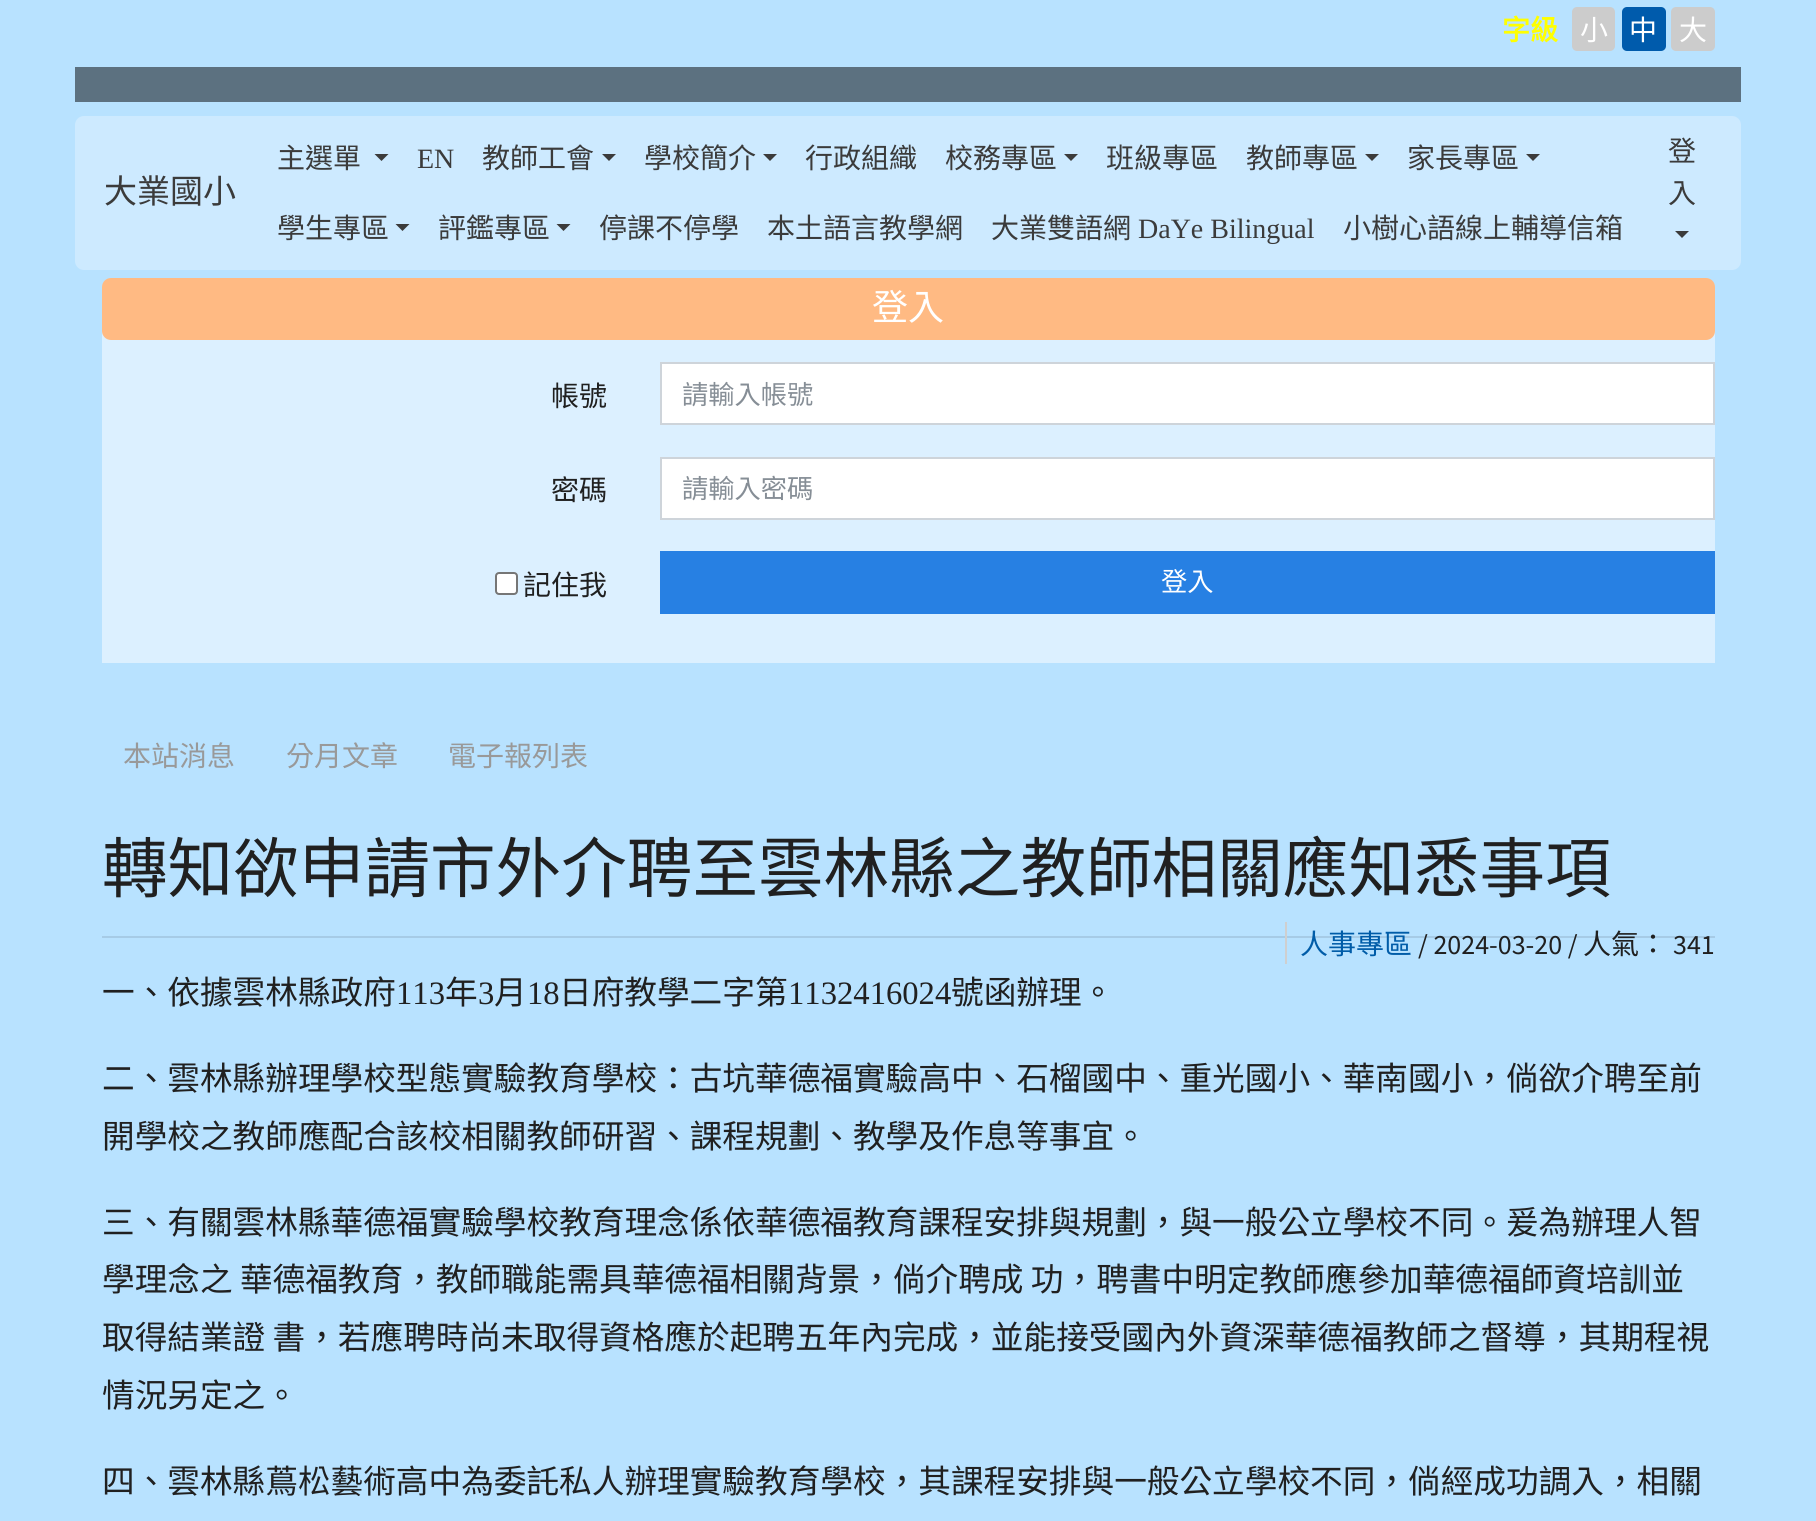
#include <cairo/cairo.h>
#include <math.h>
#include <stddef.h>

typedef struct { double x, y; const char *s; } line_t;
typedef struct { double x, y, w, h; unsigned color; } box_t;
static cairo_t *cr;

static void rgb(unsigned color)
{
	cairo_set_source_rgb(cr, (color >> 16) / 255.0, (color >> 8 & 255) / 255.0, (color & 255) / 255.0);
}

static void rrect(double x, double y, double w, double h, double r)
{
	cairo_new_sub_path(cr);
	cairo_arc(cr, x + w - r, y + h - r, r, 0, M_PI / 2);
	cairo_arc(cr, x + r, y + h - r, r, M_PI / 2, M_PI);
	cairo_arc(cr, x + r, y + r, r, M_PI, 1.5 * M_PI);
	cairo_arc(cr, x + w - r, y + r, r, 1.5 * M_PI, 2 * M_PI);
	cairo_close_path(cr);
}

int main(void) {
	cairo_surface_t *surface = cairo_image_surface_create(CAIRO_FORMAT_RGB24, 1816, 1521);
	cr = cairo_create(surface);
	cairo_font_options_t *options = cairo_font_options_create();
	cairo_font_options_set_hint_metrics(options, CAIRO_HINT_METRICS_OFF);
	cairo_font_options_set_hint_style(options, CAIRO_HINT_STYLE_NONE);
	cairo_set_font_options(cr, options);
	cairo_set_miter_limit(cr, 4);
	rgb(0xb8e2ff);
	cairo_paint(cr);
	rgb(0xcccccc);
	rrect(1572, 7, 43, 44, 5);
	cairo_fill(cr);
	rgb(0x005bac);
	rrect(1622, 7, 44, 44, 5);
	cairo_fill(cr);
	rgb(0xcccccc);
	rrect(1671, 7, 44, 44, 5);
	cairo_fill(cr);
	rgb(0x5c7180);
	cairo_rectangle(cr, 75, 67, 1666, 35);
	cairo_fill(cr);
	rgb(0xcdeaff);
	rrect(75, 116, 1666, 154, 9);
	cairo_fill(cr);
	rgb(0x3b3b3b);
	cairo_new_path(cr);
	cairo_move_to(cr, 374.5, 154);
	cairo_line_to(cr, 388.5, 154);
	cairo_line_to(cr, 381.5, 161);
	cairo_close_path(cr);
	cairo_fill(cr);
	cairo_new_path(cr);
	cairo_move_to(cr, 602, 154);
	cairo_line_to(cr, 616, 154);
	cairo_line_to(cr, 609, 161);
	cairo_close_path(cr);
	cairo_fill(cr);
	cairo_new_path(cr);
	cairo_move_to(cr, 763, 154);
	cairo_line_to(cr, 777, 154);
	cairo_line_to(cr, 770, 161);
	cairo_close_path(cr);
	cairo_fill(cr);
	cairo_new_path(cr);
	cairo_move_to(cr, 1064, 154);
	cairo_line_to(cr, 1078, 154);
	cairo_line_to(cr, 1071, 161);
	cairo_close_path(cr);
	cairo_fill(cr);
	cairo_new_path(cr);
	cairo_move_to(cr, 1365, 154);
	cairo_line_to(cr, 1379, 154);
	cairo_line_to(cr, 1372, 161);
	cairo_close_path(cr);
	cairo_fill(cr);
	cairo_new_path(cr);
	cairo_move_to(cr, 1526, 154);
	cairo_line_to(cr, 1540, 154);
	cairo_line_to(cr, 1533, 161);
	cairo_close_path(cr);
	cairo_fill(cr);
	cairo_new_path(cr);
	cairo_move_to(cr, 395.5, 224);
	cairo_line_to(cr, 409.5, 224);
	cairo_line_to(cr, 402.5, 231);
	cairo_close_path(cr);
	cairo_fill(cr);
	cairo_new_path(cr);
	cairo_move_to(cr, 556.5, 224);
	cairo_line_to(cr, 570.5, 224);
	cairo_line_to(cr, 563.5, 231);
	cairo_close_path(cr);
	cairo_fill(cr);
	cairo_new_path(cr);
	cairo_move_to(cr, 1675, 231);
	cairo_line_to(cr, 1689, 231);
	cairo_line_to(cr, 1682, 238);
	cairo_close_path(cr);
	cairo_fill(cr);
	rgb(0xdcf0ff);
	cairo_new_path(cr);
	cairo_move_to(cr, 113, 278);
	cairo_line_to(cr, 1704, 278);
	cairo_curve_to(cr, 1710, 278, 1715, 283, 1715, 289);
	cairo_line_to(cr, 1715, 663);
	cairo_line_to(cr, 102, 663);
	cairo_line_to(cr, 102, 289);
	cairo_curve_to(cr, 102, 283, 107, 278, 113, 278);
	cairo_close_path(cr);
	cairo_fill(cr);
	rgb(0xffba83);
	rrect(102, 278, 1613, 62, 9);
	cairo_fill(cr);
	rgb(0xffffff);
	cairo_rectangle(cr, 661, 363, 1053, 61);
	cairo_fill_preserve(cr);
	rgb(0xced4da);
	cairo_stroke(cr);
	rgb(0xffffff);
	cairo_rectangle(cr, 661, 458, 1053, 61);
	cairo_fill_preserve(cr);
	rgb(0xced4da);
	cairo_stroke(cr);
	rgb(0xffffff);
	rrect(496, 573, 21, 21, 3);
	cairo_fill_preserve(cr);
	rgb(0x767676);
	cairo_stroke(cr);
	{
		static const box_t items[] = {
			{660, 551, 1055, 63, 0x2780e3},
			{102, 936, 1613, 2, 0xa6cbe6},
			{1285, 922, 2, 42, 0xcfcfcf},
		};
		for (size_t i = 0; i < sizeof items / sizeof *items; i++) {
			rgb(items[i].color);
			cairo_rectangle(cr, items[i].x, items[i].y, items[i].w, items[i].h);
			cairo_fill(cr);
		}
	}
	cairo_select_font_face(cr, "Noto Sans CJK TC", CAIRO_FONT_SLANT_NORMAL, CAIRO_FONT_WEIGHT_BOLD);
	cairo_set_font_size(cr, 28);
	rgb(0xffff00);
	cairo_move_to(cr, 1502, 40);
	cairo_show_text(cr, "字級");
	cairo_select_font_face(cr, "Noto Sans CJK TC", CAIRO_FONT_SLANT_NORMAL, CAIRO_FONT_WEIGHT_NORMAL);
	rgb(0xffffff);
	{
		static const line_t items[] = {
			{1580, 40, "小"},
			{1629, 40, "中"},
			{1679, 40, "大"},
		};
		for (size_t i = 0; i < sizeof items / sizeof *items; i++) {
			cairo_move_to(cr, items[i].x, items[i].y);
			cairo_show_text(cr, items[i].s);
		}
	}
	cairo_set_font_size(cr, 33);
	rgb(0x3b3b3b);
	cairo_move_to(cr, 104, 203);
	cairo_show_text(cr, "大業國小");
	cairo_set_font_size(cr, 28);
	cairo_move_to(cr, 277, 168);
	cairo_show_text(cr, "主選單");
	cairo_select_font_face(cr, "Liberation Serif", CAIRO_FONT_SLANT_NORMAL, CAIRO_FONT_WEIGHT_NORMAL);
	cairo_move_to(cr, 417, 168);
	cairo_show_text(cr, "EN");
	cairo_select_font_face(cr, "Noto Sans CJK TC", CAIRO_FONT_SLANT_NORMAL, CAIRO_FONT_WEIGHT_NORMAL);
	{
		static const line_t items[] = {
			{482, 168, "教師工會"},
			{644, 168, "學校簡介"},
			{805, 168, "行政組織"},
			{945, 168, "校務專區"},
			{1106, 168, "班級專區"},
			{1246, 168, "教師專區"},
			{1407, 168, "家長專區"},
			{277, 238, "學生專區"},
			{438, 238, "評鑑專區"},
			{599, 238, "停課不停學"},
			{767, 238, "本土語言教學網"},
			{991, 238, "大業雙語網"},
		};
		for (size_t i = 0; i < sizeof items / sizeof *items; i++) {
			cairo_move_to(cr, items[i].x, items[i].y);
			cairo_show_text(cr, items[i].s);
		}
	}
	cairo_select_font_face(cr, "Liberation Serif", CAIRO_FONT_SLANT_NORMAL, CAIRO_FONT_WEIGHT_NORMAL);
	cairo_move_to(cr, 1138, 238);
	cairo_show_text(cr, "DaYe Bilingual");
	cairo_select_font_face(cr, "Noto Sans CJK TC", CAIRO_FONT_SLANT_NORMAL, CAIRO_FONT_WEIGHT_NORMAL);
	{
		static const line_t items[] = {
			{1343, 238, "小樹心語線上輔導信箱"},
			{1668, 161, "登"},
			{1668, 203, "入"},
		};
		for (size_t i = 0; i < sizeof items / sizeof *items; i++) {
			cairo_move_to(cr, items[i].x, items[i].y);
			cairo_show_text(cr, items[i].s);
		}
	}
	cairo_set_font_size(cr, 36);
	rgb(0xffffff);
	cairo_move_to(cr, 872, 320);
	cairo_show_text(cr, "登入");
	cairo_set_font_size(cr, 28);
	rgb(0x202020);
	cairo_move_to(cr, 551, 406);
	cairo_show_text(cr, "帳號");
	cairo_set_font_size(cr, 26.25);
	rgb(0x868e96);
	cairo_move_to(cr, 682, 404);
	cairo_show_text(cr, "請輸入帳號");
	cairo_set_font_size(cr, 28);
	rgb(0x202020);
	cairo_move_to(cr, 551, 500);
	cairo_show_text(cr, "密碼");
	cairo_set_font_size(cr, 26.25);
	rgb(0x868e96);
	cairo_move_to(cr, 682, 498);
	cairo_show_text(cr, "請輸入密碼");
	cairo_set_font_size(cr, 28);
	rgb(0x202020);
	cairo_move_to(cr, 523, 595);
	cairo_show_text(cr, "記住我");
	cairo_set_font_size(cr, 26.25);
	rgb(0xffffff);
	cairo_move_to(cr, 1161, 591);
	cairo_show_text(cr, "登入");
	cairo_set_font_size(cr, 28);
	rgb(0x999999);
	{
		static const line_t items[] = {
			{123, 766, "本站消息"},
			{286, 766, "分月文章"},
			{448, 766, "電子報列表"},
		};
		for (size_t i = 0; i < sizeof items / sizeof *items; i++) {
			cairo_move_to(cr, items[i].x, items[i].y);
			cairo_show_text(cr, items[i].s);
		}
	}
	cairo_set_font_size(cr, 65.6);
	rgb(0x202020);
	cairo_move_to(cr, 102, 892);
	cairo_show_text(cr, "轉知欲申請市外介聘至雲林縣之教師相關應知悉事項");
	cairo_set_font_size(cr, 28);
	rgb(0x005ca8);
	cairo_move_to(cr, 1300, 954);
	cairo_show_text(cr, "人事專區");
	cairo_select_font_face(cr, "Source Sans Pro", CAIRO_FONT_SLANT_NORMAL, CAIRO_FONT_WEIGHT_NORMAL);
	rgb(0x202020);
	cairo_move_to(cr, 1418, 954);
	cairo_show_text(cr, "/ 2024-03-20 /");
	cairo_select_font_face(cr, "Noto Sans CJK TC", CAIRO_FONT_SLANT_NORMAL, CAIRO_FONT_WEIGHT_NORMAL);
	cairo_move_to(cr, 1583, 954);
	cairo_show_text(cr, "人氣：");
	cairo_select_font_face(cr, "Source Sans Pro", CAIRO_FONT_SLANT_NORMAL, CAIRO_FONT_WEIGHT_NORMAL);
	cairo_move_to(cr, 1673, 954);
	cairo_show_text(cr, "341");
	cairo_select_font_face(cr, "Noto Sans CJK TC", CAIRO_FONT_SLANT_NORMAL, CAIRO_FONT_WEIGHT_NORMAL);
	cairo_set_font_size(cr, 32.65);
	cairo_move_to(cr, 102, 1004);
	cairo_show_text(cr, "一、依據雲林縣政府");
	cairo_select_font_face(cr, "Liberation Serif", CAIRO_FONT_SLANT_NORMAL, CAIRO_FONT_WEIGHT_NORMAL);
	cairo_move_to(cr, 396, 1004);
	cairo_show_text(cr, "113");
	cairo_select_font_face(cr, "Noto Sans CJK TC", CAIRO_FONT_SLANT_NORMAL, CAIRO_FONT_WEIGHT_NORMAL);
	cairo_move_to(cr, 445, 1004);
	cairo_show_text(cr, "年");
	cairo_select_font_face(cr, "Liberation Serif", CAIRO_FONT_SLANT_NORMAL, CAIRO_FONT_WEIGHT_NORMAL);
	cairo_move_to(cr, 478, 1004);
	cairo_show_text(cr, "3");
	cairo_select_font_face(cr, "Noto Sans CJK TC", CAIRO_FONT_SLANT_NORMAL, CAIRO_FONT_WEIGHT_NORMAL);
	cairo_move_to(cr, 494, 1004);
	cairo_show_text(cr, "月");
	cairo_select_font_face(cr, "Liberation Serif", CAIRO_FONT_SLANT_NORMAL, CAIRO_FONT_WEIGHT_NORMAL);
	cairo_move_to(cr, 527, 1004);
	cairo_show_text(cr, "18");
	cairo_select_font_face(cr, "Noto Sans CJK TC", CAIRO_FONT_SLANT_NORMAL, CAIRO_FONT_WEIGHT_NORMAL);
	cairo_move_to(cr, 559, 1004);
	cairo_show_text(cr, "日府教學二字第");
	cairo_select_font_face(cr, "Liberation Serif", CAIRO_FONT_SLANT_NORMAL, CAIRO_FONT_WEIGHT_NORMAL);
	cairo_move_to(cr, 788, 1004);
	cairo_show_text(cr, "1132416024");
	cairo_select_font_face(cr, "Noto Sans CJK TC", CAIRO_FONT_SLANT_NORMAL, CAIRO_FONT_WEIGHT_NORMAL);
	{
		static const line_t items[] = {
			{951, 1004, "號函辦理。"},
			{102, 1090, "二、雲林縣辦理學校型態實驗教育學校：古坑華德福實驗高中、石榴國中、重光國小、華南國小，倘欲介聘至前"},
			{102, 1148, "開學校之教師應配合該校相關教師研習、課程規劃、教學及作息等事宜。"},
			{102, 1234, "三、有關雲林縣華德福實驗學校教育理念係依華德福教育課程安排與規劃，與一般公立學校不同。爰為辦理人智"},
			{102, 1291, "學理念之 華德福教育，教師職能需具華德福相關背景，倘介聘成 功，聘書中明定教師應參加華德福師資培訓並"},
			{102, 1349, "取得結業證 書，若應聘時尚未取得資格應於起聘五年內完成，並能接受國內外資深華德福教師之督導，其期程視"},
			{102, 1407, "情況另定之。"},
			{102, 1493, "四、雲林縣蔦松藝術高中為委託私人辦理實驗教育學校，其課程安排與一般公立學校不同，倘經成功調入，相關"},
		};
		for (size_t i = 0; i < sizeof items / sizeof *items; i++) {
			cairo_move_to(cr, items[i].x, items[i].y);
			cairo_show_text(cr, items[i].s);
		}
	}
	cairo_surface_write_to_png(surface, "page.png");
	cairo_font_options_destroy(options);
	cairo_destroy(cr);
	cairo_surface_destroy(surface);
	return 0;
}
